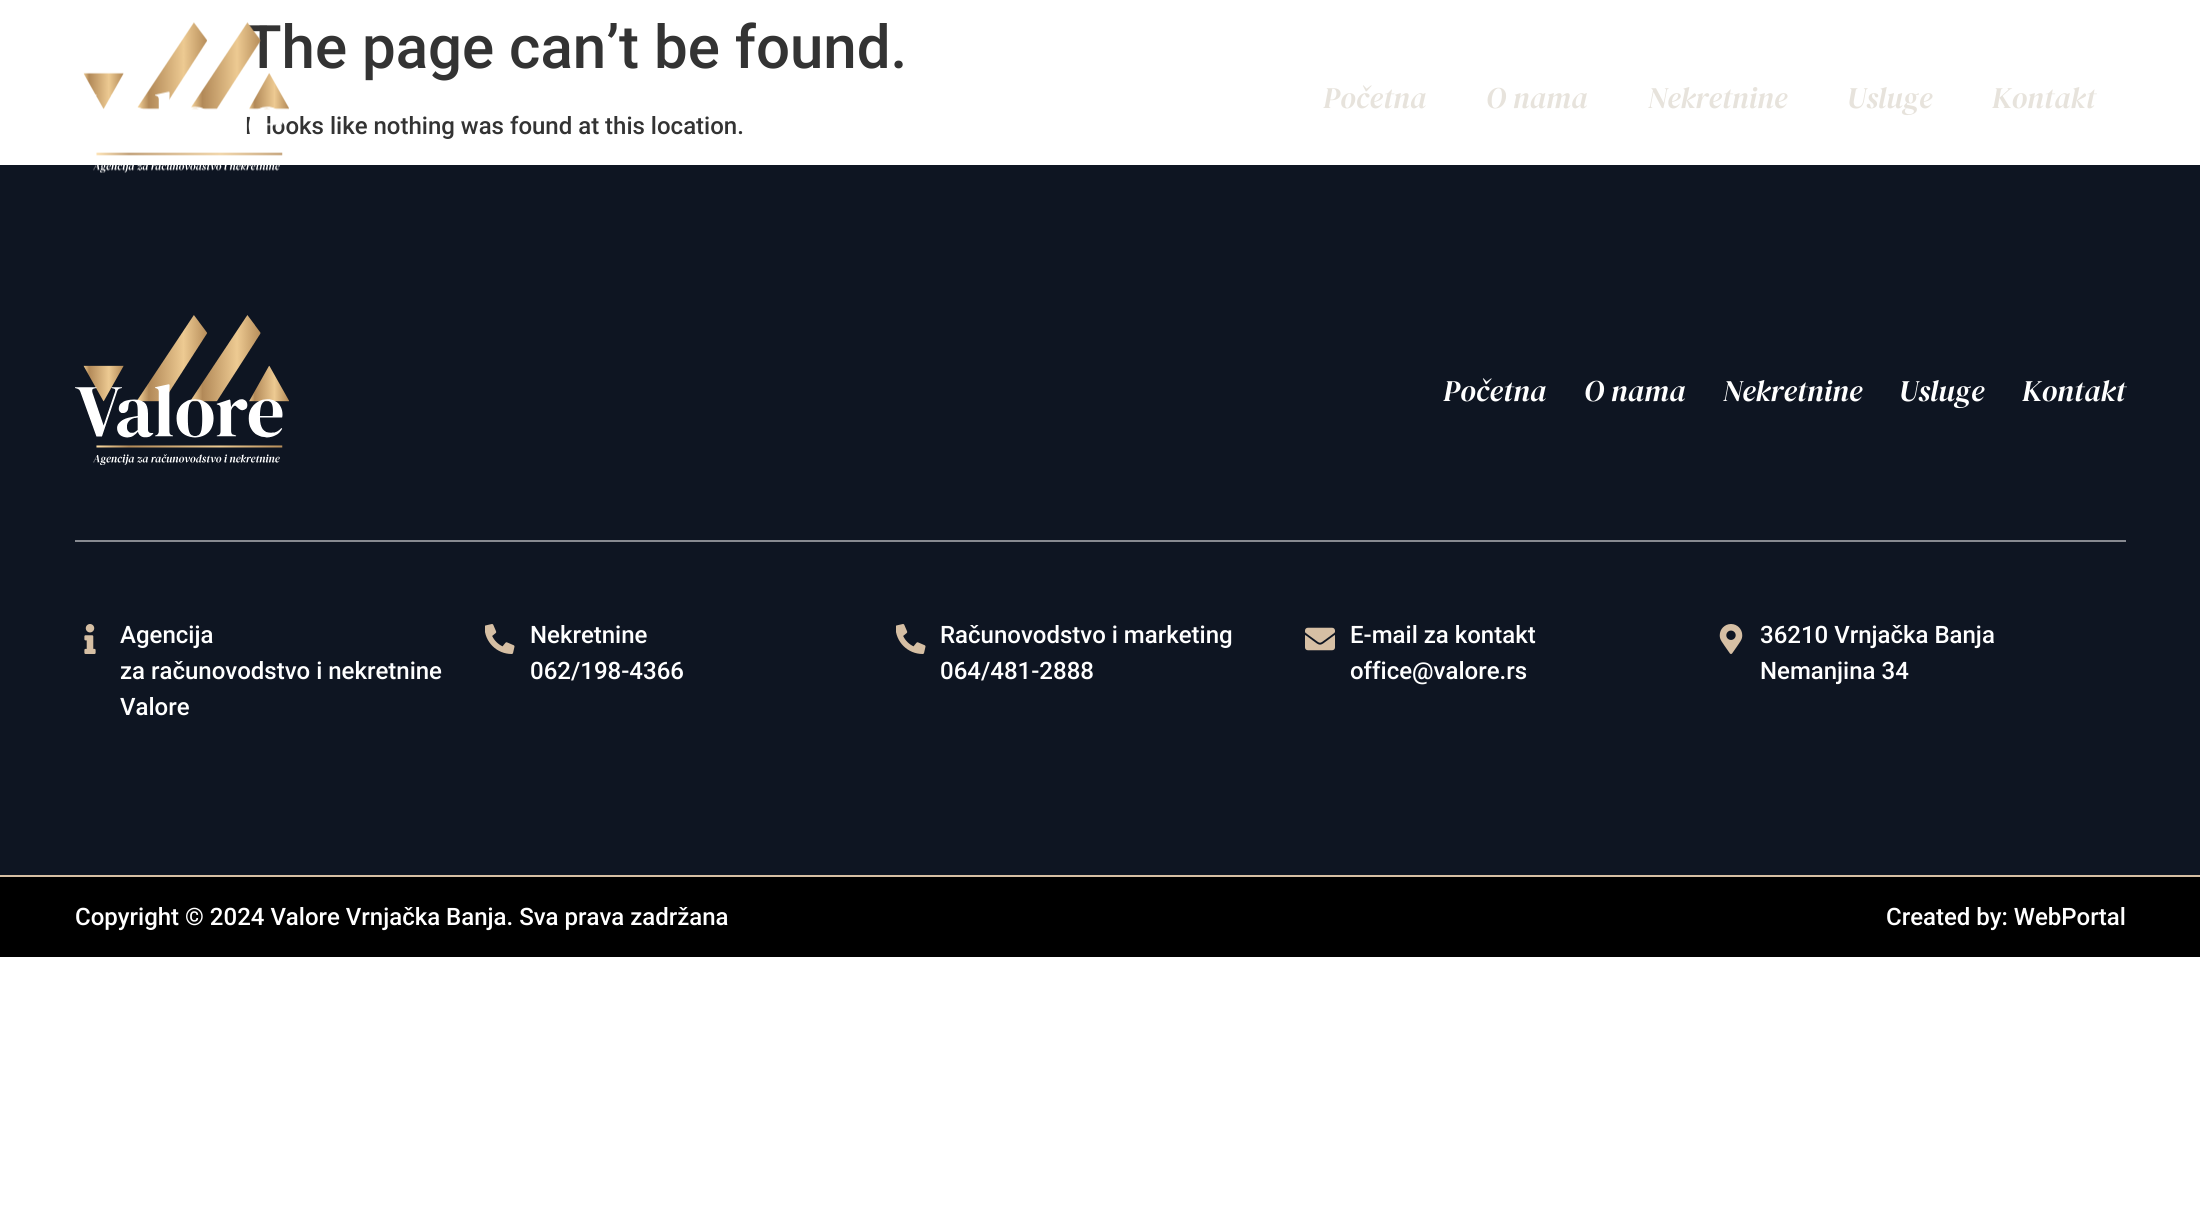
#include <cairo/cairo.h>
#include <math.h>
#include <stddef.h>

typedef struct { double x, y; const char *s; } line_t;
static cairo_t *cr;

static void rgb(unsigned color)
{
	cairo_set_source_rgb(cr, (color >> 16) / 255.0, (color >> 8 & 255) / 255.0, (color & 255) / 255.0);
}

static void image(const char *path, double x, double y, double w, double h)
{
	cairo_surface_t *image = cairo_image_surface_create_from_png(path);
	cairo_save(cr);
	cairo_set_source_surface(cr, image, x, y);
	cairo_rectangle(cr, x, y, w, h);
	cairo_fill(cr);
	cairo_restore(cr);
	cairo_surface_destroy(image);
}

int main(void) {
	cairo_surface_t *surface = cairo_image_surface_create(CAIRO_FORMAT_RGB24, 2200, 1229);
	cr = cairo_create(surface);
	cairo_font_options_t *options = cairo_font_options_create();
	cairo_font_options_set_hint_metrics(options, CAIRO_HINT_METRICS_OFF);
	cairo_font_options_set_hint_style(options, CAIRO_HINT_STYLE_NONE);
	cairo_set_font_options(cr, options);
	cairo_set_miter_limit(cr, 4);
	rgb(0xffffff);
	cairo_paint(cr);
	rgb(0x0e1522);
	cairo_rectangle(cr, 0, 165, 2200, 710);
	cairo_fill(cr);
	image("img/2.png", 75, 315, 214, 150);
	rgb(0x878a91);
	cairo_rectangle(cr, 75, 540, 2051, 2);
	cairo_fill(cr);
	image("img/3.png", 84, 624, 12, 30);
	image("img/4.png", 485, 624, 30, 30);
	image("img/4.png", 896, 624, 30, 30);
	image("img/5.png", 1305, 627, 30, 24);
	image("img/6.png", 1719, 624, 24, 30);
	rgb(0x000000);
	cairo_rectangle(cr, 0, 877, 2200, 80);
	cairo_fill(cr);
	rgb(0xd6bfa4);
	cairo_rectangle(cr, 0, 875, 2200, 2);
	cairo_fill(cr);
	cairo_select_font_face(cr, "Roboto Medium", CAIRO_FONT_SLANT_NORMAL, CAIRO_FONT_WEIGHT_NORMAL);
	cairo_set_font_size(cr, 60);
	rgb(0x333333);
	cairo_move_to(cr, 245, 68);
	cairo_show_text(cr, "The page can’t be found.");
	cairo_set_font_size(cr, 24);
	cairo_move_to(cr, 245, 134);
	cairo_show_text(cr, "It looks like nothing was found at this location.");
	image("img/1.png", 83, 22, 206, 151);
	cairo_select_font_face(cr, "DM Serif Display", CAIRO_FONT_SLANT_ITALIC, CAIRO_FONT_WEIGHT_NORMAL);
	cairo_set_font_size(cr, 30);
	rgb(0xe7e3dc);
	{
		static const line_t items[] = {
			{1323, 108, "Početna"},
			{1486, 108, "O nama"},
			{1648, 108, "Nekretnine"},
			{1847, 108, "Usluge"},
			{1992, 108, "Kontakt"},
		};
		for (size_t i = 0; i < sizeof items / sizeof *items; i++) {
			cairo_move_to(cr, items[i].x, items[i].y);
			cairo_show_text(cr, items[i].s);
		}
	}
	rgb(0xffffff);
	{
		static const line_t items[] = {
			{1443, 401, "Početna"},
			{1584, 401, "O nama"},
			{1723, 401, "Nekretnine"},
			{1899, 401, "Usluge"},
			{2022, 401, "Kontakt"},
		};
		for (size_t i = 0; i < sizeof items / sizeof *items; i++) {
			cairo_move_to(cr, items[i].x, items[i].y);
			cairo_show_text(cr, items[i].s);
		}
	}
	cairo_select_font_face(cr, "Roboto Medium", CAIRO_FONT_SLANT_NORMAL, CAIRO_FONT_WEIGHT_NORMAL);
	cairo_set_font_size(cr, 24);
	{
		static const line_t items[] = {
			{120, 643, "Agencija"},
			{120, 679, "za računovodstvo i nekretnine"},
			{120, 715, "Valore"},
			{530, 643, "Nekretnine"},
			{530, 679, "062/198-4366"},
			{940, 643, "Računovodstvo i marketing"},
			{940, 679, "064/481-2888"},
			{1350, 643, "E-mail za kontakt"},
			{1350, 679, "office@valore.rs"},
			{1760, 643, "36210 Vrnjačka Banja"},
			{1760, 679, "Nemanjina 34"},
			{75, 925, "Copyright © 2024 Valore Vrnjačka Banja. Sva prava zadržana"},
			{1886, 925, "Created by: WebPortal"},
		};
		for (size_t i = 0; i < sizeof items / sizeof *items; i++) {
			cairo_move_to(cr, items[i].x, items[i].y);
			cairo_show_text(cr, items[i].s);
		}
	}
	cairo_surface_write_to_png(surface, "page.png");
	cairo_font_options_destroy(options);
	cairo_destroy(cr);
	cairo_surface_destroy(surface);
	return 0;
}
